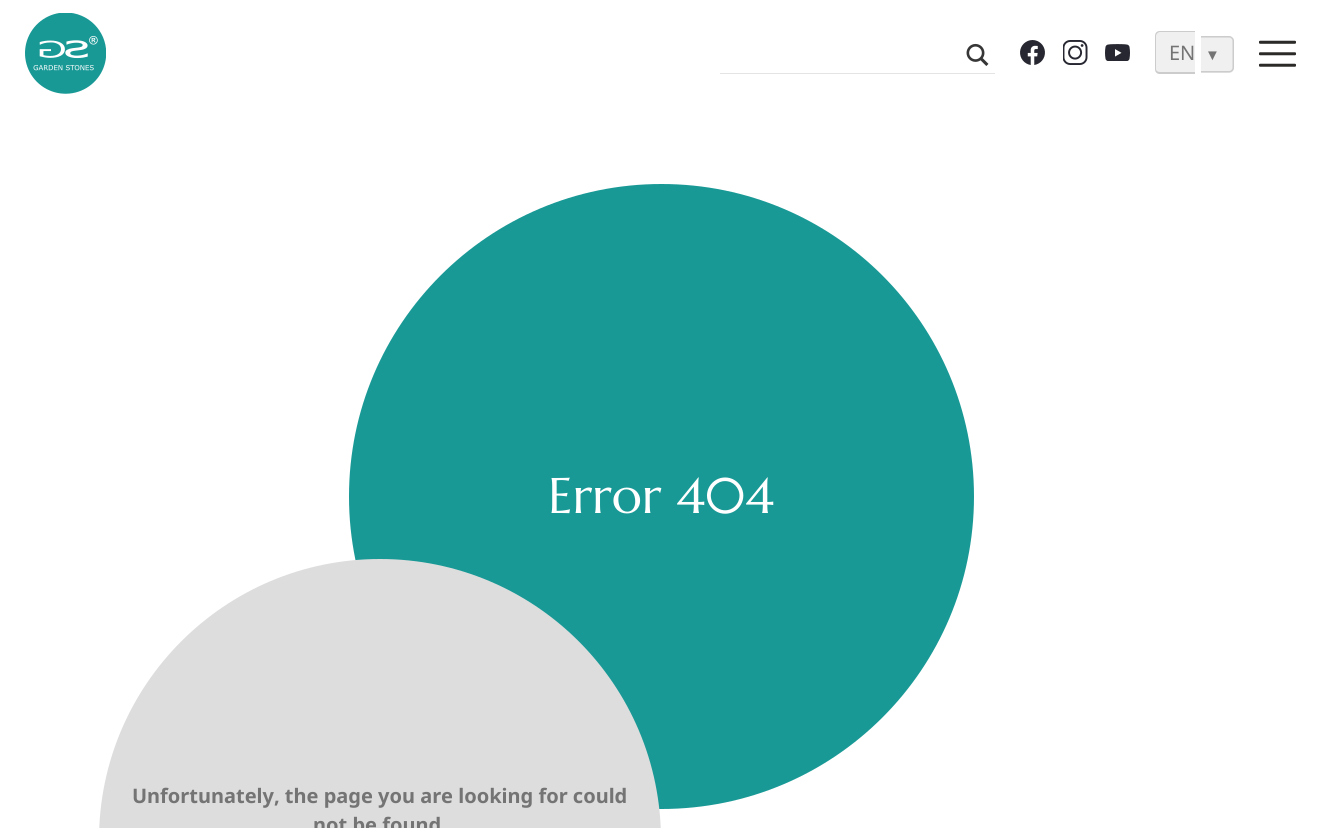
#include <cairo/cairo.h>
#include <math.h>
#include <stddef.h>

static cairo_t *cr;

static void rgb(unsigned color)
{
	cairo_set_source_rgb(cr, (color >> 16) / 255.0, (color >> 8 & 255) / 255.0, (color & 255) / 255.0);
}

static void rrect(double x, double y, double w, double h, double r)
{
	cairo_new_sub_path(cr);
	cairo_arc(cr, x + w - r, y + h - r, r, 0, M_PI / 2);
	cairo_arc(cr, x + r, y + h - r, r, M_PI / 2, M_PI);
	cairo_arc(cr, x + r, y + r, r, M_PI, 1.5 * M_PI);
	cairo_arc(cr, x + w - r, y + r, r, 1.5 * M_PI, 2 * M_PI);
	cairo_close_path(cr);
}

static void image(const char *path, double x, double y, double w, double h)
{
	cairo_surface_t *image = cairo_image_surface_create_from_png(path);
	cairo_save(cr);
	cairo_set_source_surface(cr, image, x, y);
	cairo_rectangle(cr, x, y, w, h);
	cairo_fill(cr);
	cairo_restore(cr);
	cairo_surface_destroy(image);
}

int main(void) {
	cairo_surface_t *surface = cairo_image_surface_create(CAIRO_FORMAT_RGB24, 1321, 828);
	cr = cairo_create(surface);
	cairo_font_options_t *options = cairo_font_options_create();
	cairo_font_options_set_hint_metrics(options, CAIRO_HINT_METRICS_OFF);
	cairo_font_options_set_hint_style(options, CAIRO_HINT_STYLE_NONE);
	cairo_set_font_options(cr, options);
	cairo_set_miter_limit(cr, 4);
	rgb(0xffffff);
	cairo_paint(cr);
	image("img/1.png", 25, 13, 81, 81);
	rgb(0xe4e4e4);
	cairo_rectangle(cr, 720, 73, 275, 1);
	cairo_fill(cr);
	image("img/2.png", 966, 43, 23, 23);
	image("img/3.png", 1020, 40, 25, 25);
	image("img/4.png", 1063, 40, 25, 25);
	image("img/5.png", 1105, 44, 25, 17);
	rgb(0xf0f0f0);
	cairo_new_path(cr);
	cairo_move_to(cr, 1160, 31);
	cairo_line_to(cr, 1195, 31);
	cairo_line_to(cr, 1195, 74);
	cairo_line_to(cr, 1160, 74);
	cairo_curve_to(cr, 1157, 74, 1155, 72, 1155, 69);
	cairo_line_to(cr, 1155, 36);
	cairo_curve_to(cr, 1155, 33, 1157, 31, 1160, 31);
	cairo_close_path(cr);
	cairo_fill(cr);
	rgb(0xcccccc);
	cairo_set_fill_rule(cr, CAIRO_FILL_RULE_EVEN_ODD);
	cairo_new_path(cr);
	cairo_move_to(cr, 1160, 31);
	cairo_line_to(cr, 1195, 31);
	cairo_line_to(cr, 1195, 74);
	cairo_line_to(cr, 1160, 74);
	cairo_curve_to(cr, 1157, 74, 1155, 72, 1155, 69);
	cairo_line_to(cr, 1155, 36);
	cairo_curve_to(cr, 1155, 33, 1157, 31, 1160, 31);
	cairo_close_path(cr);
	cairo_move_to(cr, 1160, 32);
	cairo_line_to(cr, 1195, 32);
	cairo_line_to(cr, 1195, 72);
	cairo_line_to(cr, 1160, 72);
	cairo_curve_to(cr, 1158, 72, 1156, 71, 1156, 69);
	cairo_line_to(cr, 1156, 36);
	cairo_curve_to(cr, 1156, 34, 1158, 32, 1160, 32);
	cairo_close_path(cr);
	cairo_fill(cr);
	rgb(0xf0f0f0);
	cairo_new_path(cr);
	cairo_move_to(cr, 1201, 36);
	cairo_line_to(cr, 1229, 36);
	cairo_curve_to(cr, 1232, 36, 1234, 38, 1234, 41);
	cairo_line_to(cr, 1234, 68);
	cairo_curve_to(cr, 1234, 71, 1232, 73, 1229, 73);
	cairo_line_to(cr, 1201, 73);
	cairo_close_path(cr);
	cairo_fill(cr);
	rgb(0xcccccc);
	cairo_new_path(cr);
	cairo_move_to(cr, 1201, 36);
	cairo_line_to(cr, 1229, 36);
	cairo_curve_to(cr, 1231.5, 36, 1234, 38.5, 1234, 41);
	cairo_line_to(cr, 1234, 67.5);
	cairo_curve_to(cr, 1234, 70.5, 1231.5, 72.5, 1229, 72.5);
	cairo_line_to(cr, 1201, 72.5);
	cairo_close_path(cr);
	cairo_move_to(cr, 1201, 37.5);
	cairo_line_to(cr, 1229, 37.5);
	cairo_curve_to(cr, 1231, 37.5, 1232.5, 39, 1232.5, 41);
	cairo_line_to(cr, 1232.5, 67.5);
	cairo_curve_to(cr, 1232.5, 69.5, 1231, 71, 1229, 71);
	cairo_line_to(cr, 1201, 71);
	cairo_close_path(cr);
	cairo_fill(cr);
	image("img/6.png", 1259, 40, 37, 27);
	rgb(0x199996);
	cairo_arc(cr, 661.5, 496.5, 312.5, 0, 2 * M_PI);
	cairo_fill(cr);
	rgb(0xdddddd);
	rrect(99, 559, 562, 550, 281);
	cairo_fill(cr);
	cairo_select_font_face(cr, "Noto Sans", CAIRO_FONT_SLANT_NORMAL, CAIRO_FONT_WEIGHT_NORMAL);
	cairo_set_font_size(cr, 20);
	rgb(0x747474);
	cairo_move_to(cr, 1169, 60);
	cairo_show_text(cr, "EN");
	cairo_select_font_face(cr, "Liberation Sans", CAIRO_FONT_SLANT_NORMAL, CAIRO_FONT_WEIGHT_NORMAL);
	cairo_set_font_size(cr, 15);
	cairo_move_to(cr, 1205, 60);
	cairo_show_text(cr, "▼");
	cairo_select_font_face(cr, "Marcellus", CAIRO_FONT_SLANT_NORMAL, CAIRO_FONT_WEIGHT_NORMAL);
	cairo_set_font_size(cr, 50);
	rgb(0xffffff);
	cairo_move_to(cr, 548, 513);
	cairo_show_text(cr, "Error 404");
	cairo_select_font_face(cr, "Noto Sans", CAIRO_FONT_SLANT_NORMAL, CAIRO_FONT_WEIGHT_BOLD);
	cairo_set_font_size(cr, 20);
	rgb(0x747474);
	cairo_move_to(cr, 132, 803);
	cairo_show_text(cr, "Unfortunately, the page you are looking for could");
	cairo_move_to(cr, 313, 832);
	cairo_show_text(cr, "not be found");
	cairo_surface_write_to_png(surface, "page.png");
	cairo_font_options_destroy(options);
	cairo_destroy(cr);
	cairo_surface_destroy(surface);
	return 0;
}
